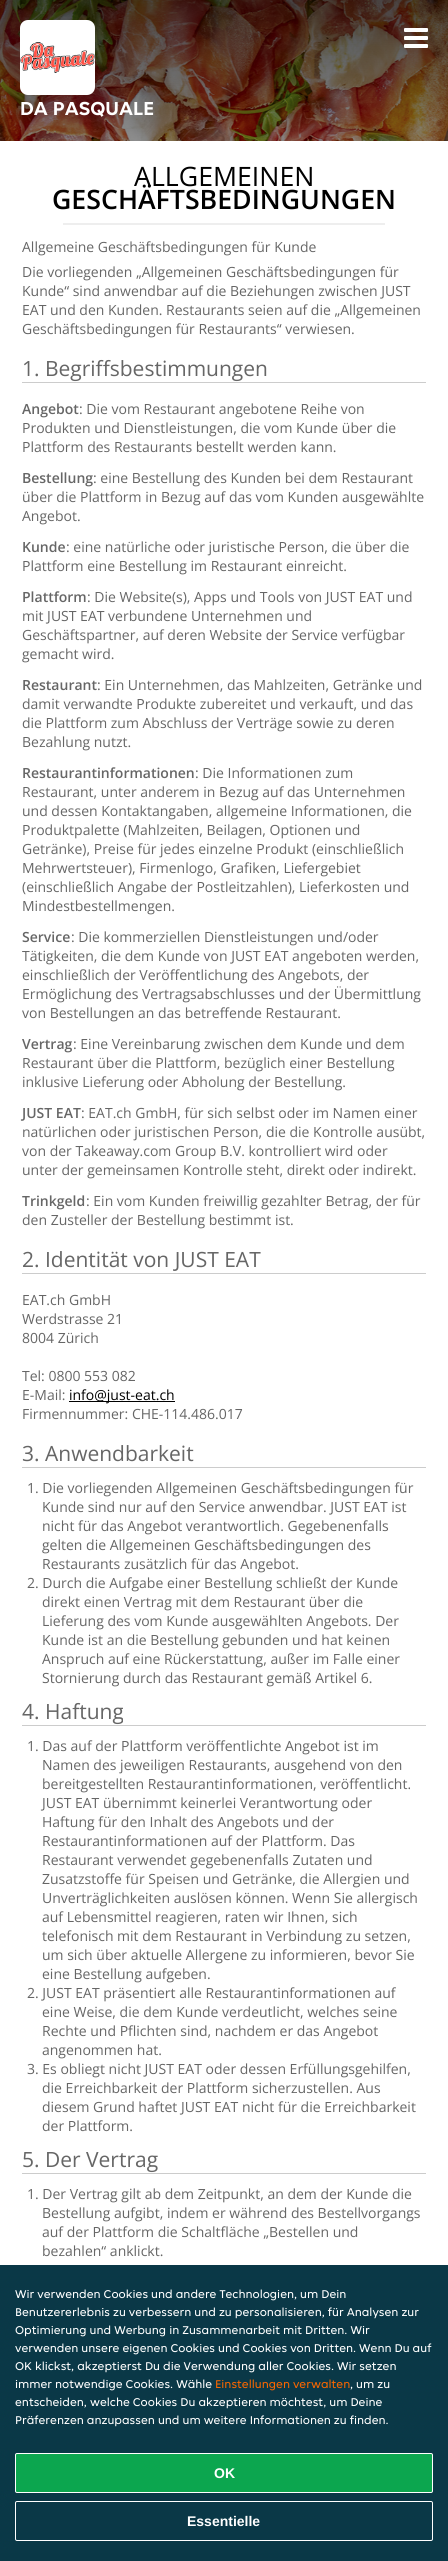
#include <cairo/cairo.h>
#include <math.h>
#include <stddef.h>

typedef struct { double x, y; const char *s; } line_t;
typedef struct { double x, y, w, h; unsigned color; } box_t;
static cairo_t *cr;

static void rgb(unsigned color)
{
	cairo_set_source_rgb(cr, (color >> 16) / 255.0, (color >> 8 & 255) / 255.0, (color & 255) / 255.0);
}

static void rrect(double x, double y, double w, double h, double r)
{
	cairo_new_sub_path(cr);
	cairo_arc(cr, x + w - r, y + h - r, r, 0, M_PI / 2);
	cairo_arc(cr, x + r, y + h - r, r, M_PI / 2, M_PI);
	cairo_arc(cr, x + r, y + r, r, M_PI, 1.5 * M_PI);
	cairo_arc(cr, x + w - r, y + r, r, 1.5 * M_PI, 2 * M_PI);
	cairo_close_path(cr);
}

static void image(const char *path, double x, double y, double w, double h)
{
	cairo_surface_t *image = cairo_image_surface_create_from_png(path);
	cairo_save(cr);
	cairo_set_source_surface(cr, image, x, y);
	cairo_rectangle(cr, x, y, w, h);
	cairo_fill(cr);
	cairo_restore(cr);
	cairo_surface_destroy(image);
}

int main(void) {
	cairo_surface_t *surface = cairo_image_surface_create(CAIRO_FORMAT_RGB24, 448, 2561);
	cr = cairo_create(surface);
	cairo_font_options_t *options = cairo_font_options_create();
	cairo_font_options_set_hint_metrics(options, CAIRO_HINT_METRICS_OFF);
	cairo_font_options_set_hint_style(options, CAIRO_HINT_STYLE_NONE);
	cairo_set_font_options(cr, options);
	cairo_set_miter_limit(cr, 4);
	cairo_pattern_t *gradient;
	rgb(0xffffff);
	cairo_paint(cr);
	image("img/1.png", 0, 0, 448, 141);
	gradient = cairo_pattern_create_linear(224, 0, 224, 500);
	cairo_pattern_add_color_stop_rgba(gradient, 0, 0, 0, 0, 0.7);
	cairo_pattern_add_color_stop_rgba(gradient, 0.33, 0, 0, 0, 0.4);
	cairo_pattern_add_color_stop_rgba(gradient, 0.67, 0, 0, 0, 0.2);
	cairo_pattern_add_color_stop_rgba(gradient, 1, 0, 0, 0, 0);
	cairo_set_source(cr, gradient);
	cairo_pattern_destroy(gradient);
	cairo_rectangle(cr, 0, 0, 448, 141);
	cairo_fill(cr);
	image("img/2.png", 404, 28, 24, 20);
	rgb(0xffffff);
	rrect(20, 20, 75, 75, 8);
	cairo_fill(cr);
	image("img/3.png", 20, 42, 75, 31);
	{
		static const box_t items[] = {
			{63, 223, 322, 2, 0xeeeeee},
			{22, 382, 404, 1, 0xcccccc},
			{22, 1273, 404, 1, 0xcccccc},
			{69, 1401, 106, 1, 0x000000},
			{22, 1467, 404, 1, 0xcccccc},
			{22, 1725, 404, 1, 0xcccccc},
			{22, 2173, 404, 1, 0xcccccc},
			{0, 2265, 448, 296, 0x0a3847},
		};
		for (size_t i = 0; i < sizeof items / sizeof *items; i++) {
			rgb(items[i].color);
			cairo_rectangle(cr, items[i].x, items[i].y, items[i].w, items[i].h);
			cairo_fill(cr);
		}
	}
	rgb(0x0ca64f);
	rrect(15.5, 2453.5, 417, 39, 1.5);
	cairo_fill_preserve(cr);
	rgb(0xffffff);
	cairo_set_line_width(cr, 1);
	cairo_stroke(cr);
	rrect(15.5, 2501.5, 417, 39, 1.5);
	cairo_stroke(cr);
	cairo_select_font_face(cr, "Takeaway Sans", CAIRO_FONT_SLANT_NORMAL, CAIRO_FONT_WEIGHT_BOLD);
	cairo_set_font_size(cr, 20);
	cairo_move_to(cr, 20, 115);
	cairo_show_text(cr, "DA PASQUALE");
	cairo_select_font_face(cr, "Open Sans", CAIRO_FONT_SLANT_NORMAL, CAIRO_FONT_WEIGHT_NORMAL);
	cairo_set_font_size(cr, 26.7);
	rgb(0x000000);
	cairo_move_to(cr, 134, 186);
	cairo_show_text(cr, "ALLGEMEINEN");
	cairo_select_font_face(cr, "Open Sans SemiBold", CAIRO_FONT_SLANT_NORMAL, CAIRO_FONT_WEIGHT_NORMAL);
	cairo_move_to(cr, 52, 209);
	cairo_show_text(cr, "GESCHÄFTSBEDINGUNGEN");
	cairo_select_font_face(cr, "Open Sans", CAIRO_FONT_SLANT_NORMAL, CAIRO_FONT_WEIGHT_NORMAL);
	cairo_set_font_size(cr, 14);
	rgb(0x666666);
	{
		static const line_t items[] = {
			{22, 252, "Allgemeine Geschäftsbedingungen für Kunde"},
			{22, 277, "Die vorliegenden „Allgemeinen Geschäftsbedingungen für"},
			{22, 296, "Kunde“ sind anwendbar auf die Beziehungen zwischen JUST"},
			{22, 315, "EAT und den Kunden. Restaurants seien auf die „Allgemeinen"},
			{22, 334, "Geschäftsbedingungen für Restaurants“ verwiesen."},
		};
		for (size_t i = 0; i < sizeof items / sizeof *items; i++) {
			cairo_move_to(cr, items[i].x, items[i].y);
			cairo_show_text(cr, items[i].s);
		}
	}
	cairo_set_font_size(cr, 21);
	cairo_move_to(cr, 22, 376);
	cairo_show_text(cr, "1. Begriffsbestimmungen");
	cairo_select_font_face(cr, "Open Sans SemiBold", CAIRO_FONT_SLANT_NORMAL, CAIRO_FONT_WEIGHT_NORMAL);
	cairo_set_font_size(cr, 14);
	cairo_move_to(cr, 22, 414);
	cairo_show_text(cr, "Angebot");
	cairo_select_font_face(cr, "Open Sans", CAIRO_FONT_SLANT_NORMAL, CAIRO_FONT_WEIGHT_NORMAL);
	{
		static const line_t items[] = {
			{79, 414, ": Die vom Restaurant angebotene Reihe von"},
			{22, 433, "Produkten und Dienstleistungen, die vom Kunde über die"},
			{22, 452, "Plattform des Restaurants bestellt werden kann."},
		};
		for (size_t i = 0; i < sizeof items / sizeof *items; i++) {
			cairo_move_to(cr, items[i].x, items[i].y);
			cairo_show_text(cr, items[i].s);
		}
	}
	cairo_select_font_face(cr, "Open Sans SemiBold", CAIRO_FONT_SLANT_NORMAL, CAIRO_FONT_WEIGHT_NORMAL);
	cairo_move_to(cr, 22, 483);
	cairo_show_text(cr, "Bestellung");
	cairo_select_font_face(cr, "Open Sans", CAIRO_FONT_SLANT_NORMAL, CAIRO_FONT_WEIGHT_NORMAL);
	{
		static const line_t items[] = {
			{93, 483, ": eine Bestellung des Kunden bei dem Restaurant"},
			{22, 502, "über die Plattform in Bezug auf das vom Kunden ausgewählte"},
			{22, 521, "Angebot."},
		};
		for (size_t i = 0; i < sizeof items / sizeof *items; i++) {
			cairo_move_to(cr, items[i].x, items[i].y);
			cairo_show_text(cr, items[i].s);
		}
	}
	cairo_select_font_face(cr, "Open Sans SemiBold", CAIRO_FONT_SLANT_NORMAL, CAIRO_FONT_WEIGHT_NORMAL);
	cairo_move_to(cr, 22, 552);
	cairo_show_text(cr, "Kunde");
	cairo_select_font_face(cr, "Open Sans", CAIRO_FONT_SLANT_NORMAL, CAIRO_FONT_WEIGHT_NORMAL);
	cairo_move_to(cr, 66, 552);
	cairo_show_text(cr, ": eine natürliche oder juristische Person, die über die");
	cairo_move_to(cr, 22, 571);
	cairo_show_text(cr, "Plattform eine Bestellung im Restaurant einreicht.");
	cairo_select_font_face(cr, "Open Sans SemiBold", CAIRO_FONT_SLANT_NORMAL, CAIRO_FONT_WEIGHT_NORMAL);
	cairo_move_to(cr, 22, 602);
	cairo_show_text(cr, "Plattform");
	cairo_select_font_face(cr, "Open Sans", CAIRO_FONT_SLANT_NORMAL, CAIRO_FONT_WEIGHT_NORMAL);
	{
		static const line_t items[] = {
			{87, 602, ": Die Website(s), Apps und Tools von JUST EAT und"},
			{22, 621, "mit JUST EAT verbundene Unternehmen und"},
			{22, 640, "Geschäftspartner, auf deren Website der Service verfügbar"},
			{22, 659, "gemacht wird."},
		};
		for (size_t i = 0; i < sizeof items / sizeof *items; i++) {
			cairo_move_to(cr, items[i].x, items[i].y);
			cairo_show_text(cr, items[i].s);
		}
	}
	cairo_select_font_face(cr, "Open Sans SemiBold", CAIRO_FONT_SLANT_NORMAL, CAIRO_FONT_WEIGHT_NORMAL);
	cairo_move_to(cr, 22, 690);
	cairo_show_text(cr, "Restaurant");
	cairo_select_font_face(cr, "Open Sans", CAIRO_FONT_SLANT_NORMAL, CAIRO_FONT_WEIGHT_NORMAL);
	{
		static const line_t items[] = {
			{97, 690, ": Ein Unternehmen, das Mahlzeiten, Getränke und"},
			{22, 709, "damit verwandte Produkte zubereitet und verkauft, und das"},
			{22, 728, "die Plattform zum Abschluss der Verträge sowie zu deren"},
			{22, 747, "Bezahlung nutzt."},
		};
		for (size_t i = 0; i < sizeof items / sizeof *items; i++) {
			cairo_move_to(cr, items[i].x, items[i].y);
			cairo_show_text(cr, items[i].s);
		}
	}
	cairo_select_font_face(cr, "Open Sans SemiBold", CAIRO_FONT_SLANT_NORMAL, CAIRO_FONT_WEIGHT_NORMAL);
	cairo_move_to(cr, 22, 778);
	cairo_show_text(cr, "Restaurantinformationen");
	cairo_select_font_face(cr, "Open Sans", CAIRO_FONT_SLANT_NORMAL, CAIRO_FONT_WEIGHT_NORMAL);
	{
		static const line_t items[] = {
			{195, 778, ": Die Informationen zum"},
			{22, 797, "Restaurant, unter anderem in Bezug auf das Unternehmen"},
			{22, 816, "und dessen Kontaktangaben, allgemeine Informationen, die"},
			{22, 835, "Produktpalette (Mahlzeiten, Beilagen, Optionen und"},
			{22, 854, "Getränke), Preise für jedes einzelne Produkt (einschließlich"},
			{22, 873, "Mehrwertsteuer), Firmenlogo, Grafiken, Liefergebiet"},
			{22, 892, "(einschließlich Angabe der Postleitzahlen), Lieferkosten und"},
			{22, 911, "Mindestbestellmengen."},
		};
		for (size_t i = 0; i < sizeof items / sizeof *items; i++) {
			cairo_move_to(cr, items[i].x, items[i].y);
			cairo_show_text(cr, items[i].s);
		}
	}
	cairo_select_font_face(cr, "Open Sans SemiBold", CAIRO_FONT_SLANT_NORMAL, CAIRO_FONT_WEIGHT_NORMAL);
	cairo_move_to(cr, 22, 942);
	cairo_show_text(cr, "Service");
	cairo_select_font_face(cr, "Open Sans", CAIRO_FONT_SLANT_NORMAL, CAIRO_FONT_WEIGHT_NORMAL);
	{
		static const line_t items[] = {
			{71, 942, ": Die kommerziellen Dienstleistungen und/oder"},
			{22, 961, "Tätigkeiten, die dem Kunde von JUST EAT angeboten werden,"},
			{22, 980, "einschließlich der Veröffentlichung des Angebots, der"},
			{22, 999, "Ermöglichung des Vertragsabschlusses und der Übermittlung"},
			{22, 1018, "von Bestellungen an das betreffende Restaurant."},
		};
		for (size_t i = 0; i < sizeof items / sizeof *items; i++) {
			cairo_move_to(cr, items[i].x, items[i].y);
			cairo_show_text(cr, items[i].s);
		}
	}
	cairo_select_font_face(cr, "Open Sans SemiBold", CAIRO_FONT_SLANT_NORMAL, CAIRO_FONT_WEIGHT_NORMAL);
	cairo_move_to(cr, 22, 1049);
	cairo_show_text(cr, "Vertrag");
	cairo_select_font_face(cr, "Open Sans", CAIRO_FONT_SLANT_NORMAL, CAIRO_FONT_WEIGHT_NORMAL);
	{
		static const line_t items[] = {
			{73, 1049, ": Eine Vereinbarung zwischen dem Kunde und dem"},
			{22, 1068, "Restaurant über die Plattform, bezüglich einer Bestellung"},
			{22, 1087, "inklusive Lieferung oder Abholung der Bestellung."},
		};
		for (size_t i = 0; i < sizeof items / sizeof *items; i++) {
			cairo_move_to(cr, items[i].x, items[i].y);
			cairo_show_text(cr, items[i].s);
		}
	}
	cairo_select_font_face(cr, "Open Sans SemiBold", CAIRO_FONT_SLANT_NORMAL, CAIRO_FONT_WEIGHT_NORMAL);
	cairo_move_to(cr, 22, 1118);
	cairo_show_text(cr, "JUST EAT");
	cairo_select_font_face(cr, "Open Sans", CAIRO_FONT_SLANT_NORMAL, CAIRO_FONT_WEIGHT_NORMAL);
	{
		static const line_t items[] = {
			{81, 1118, ": EAT.ch GmbH, für sich selbst oder im Namen einer"},
			{22, 1137, "natürlichen oder juristischen Person, die die Kontrolle ausübt,"},
			{22, 1156, "von der Takeaway.com Group B.V. kontrolliert wird oder"},
			{22, 1175, "unter der gemeinsamen Kontrolle steht, direkt oder indirekt."},
		};
		for (size_t i = 0; i < sizeof items / sizeof *items; i++) {
			cairo_move_to(cr, items[i].x, items[i].y);
			cairo_show_text(cr, items[i].s);
		}
	}
	cairo_select_font_face(cr, "Open Sans SemiBold", CAIRO_FONT_SLANT_NORMAL, CAIRO_FONT_WEIGHT_NORMAL);
	cairo_move_to(cr, 22, 1206);
	cairo_show_text(cr, "Trinkgeld");
	cairo_select_font_face(cr, "Open Sans", CAIRO_FONT_SLANT_NORMAL, CAIRO_FONT_WEIGHT_NORMAL);
	cairo_move_to(cr, 86, 1206);
	cairo_show_text(cr, ": Ein vom Kunden freiwillig gezahlter Betrag, der für");
	cairo_move_to(cr, 22, 1225);
	cairo_show_text(cr, "den Zusteller der Bestellung bestimmt ist.");
	cairo_set_font_size(cr, 21);
	cairo_move_to(cr, 22, 1267);
	cairo_show_text(cr, "2. Identität von JUST EAT");
	cairo_set_font_size(cr, 14);
	{
		static const line_t items[] = {
			{22, 1305, "EAT.ch GmbH"},
			{22, 1324, "Werdstrasse 21"},
			{22, 1343, "8004 Zürich"},
			{22, 1381, "Tel: 0800 553 082"},
			{22, 1400, "E-Mail:"},
		};
		for (size_t i = 0; i < sizeof items / sizeof *items; i++) {
			cairo_move_to(cr, items[i].x, items[i].y);
			cairo_show_text(cr, items[i].s);
		}
	}
	rgb(0x000000);
	cairo_move_to(cr, 69, 1400);
	cairo_show_text(cr, "info@just-eat.ch");
	rgb(0x666666);
	cairo_move_to(cr, 22, 1419);
	cairo_show_text(cr, "Firmennummer: CHE-114.486.017");
	cairo_set_font_size(cr, 21);
	cairo_move_to(cr, 22, 1461);
	cairo_show_text(cr, "3. Anwendbarkeit");
	cairo_set_font_size(cr, 14);
	{
		static const line_t items[] = {
			{27, 1493, "1. Die vorliegenden Allgemeinen Geschäftsbedingungen für"},
			{42, 1512, "Kunde sind nur auf den Service anwendbar. JUST EAT ist"},
			{42, 1531, "nicht für das Angebot verantwortlich. Gegebenenfalls"},
			{42, 1550, "gelten die Allgemeinen Geschäftsbedingungen des"},
			{42, 1569, "Restaurants zusätzlich für das Angebot."},
			{27, 1588, "2. Durch die Aufgabe einer Bestellung schließt der Kunde"},
			{42, 1607, "direkt einen Vertrag mit dem Restaurant über die"},
			{42, 1626, "Lieferung des vom Kunde ausgewählten Angebots. Der"},
			{42, 1645, "Kunde ist an die Bestellung gebunden und hat keinen"},
			{42, 1664, "Anspruch auf eine Rückerstattung, außer im Falle einer"},
			{42, 1683, "Stornierung durch das Restaurant gemäß Artikel 6."},
		};
		for (size_t i = 0; i < sizeof items / sizeof *items; i++) {
			cairo_move_to(cr, items[i].x, items[i].y);
			cairo_show_text(cr, items[i].s);
		}
	}
	cairo_set_font_size(cr, 21);
	cairo_move_to(cr, 22, 1719);
	cairo_show_text(cr, "4. Haftung");
	cairo_set_font_size(cr, 14);
	{
		static const line_t items[] = {
			{27, 1751, "1. Das auf der Plattform veröffentlichte Angebot ist im"},
			{42, 1770, "Namen des jeweiligen Restaurants, ausgehend von den"},
			{42, 1789, "bereitgestellten Restaurantinformationen, veröffentlicht."},
			{42, 1808, "JUST EAT übernimmt keinerlei Verantwortung oder"},
			{42, 1827, "Haftung für den Inhalt des Angebots und der"},
			{42, 1846, "Restaurantinformationen auf der Plattform. Das"},
			{42, 1865, "Restaurant verwendet gegebenenfalls Zutaten und"},
			{42, 1884, "Zusatzstoffe für Speisen und Getränke, die Allergien und"},
			{42, 1903, "Unverträglichkeiten auslösen können. Wenn Sie allergisch"},
			{42, 1922, "auf Lebensmittel reagieren, raten wir Ihnen, sich"},
			{42, 1941, "telefonisch mit dem Restaurant in Verbindung zu setzen,"},
			{42, 1960, "um sich über aktuelle Allergene zu informieren, bevor Sie"},
			{42, 1979, "eine Bestellung aufgeben."},
			{27, 1998, "2. JUST EAT präsentiert alle Restaurantinformationen auf"},
			{42, 2017, "eine Weise, die dem Kunde verdeutlicht, welches seine"},
			{42, 2036, "Rechte und Pflichten sind, nachdem er das Angebot"},
			{42, 2055, "angenommen hat."},
			{27, 2074, "3. Es obliegt nicht JUST EAT oder dessen Erfüllungsgehilfen,"},
			{42, 2093, "die Erreichbarkeit der Plattform sicherzustellen. Aus"},
			{42, 2112, "diesem Grund haftet JUST EAT nicht für die Erreichbarkeit"},
			{42, 2131, "der Plattform."},
		};
		for (size_t i = 0; i < sizeof items / sizeof *items; i++) {
			cairo_move_to(cr, items[i].x, items[i].y);
			cairo_show_text(cr, items[i].s);
		}
	}
	cairo_set_font_size(cr, 21);
	cairo_move_to(cr, 22, 2167);
	cairo_show_text(cr, "5. Der Vertrag");
	cairo_set_font_size(cr, 14);
	{
		static const line_t items[] = {
			{27, 2199, "1. Der Vertrag gilt ab dem Zeitpunkt, an dem der Kunde die"},
			{42, 2218, "Bestellung aufgibt, indem er während des Bestellvorgangs"},
			{42, 2237, "auf der Plattform die Schaltfläche „Bestellen und"},
			{42, 2256, "bezahlen“ anklickt."},
		};
		for (size_t i = 0; i < sizeof items / sizeof *items; i++) {
			cairo_move_to(cr, items[i].x, items[i].y);
			cairo_show_text(cr, items[i].s);
		}
	}
	cairo_select_font_face(cr, "Takeaway Sans", CAIRO_FONT_SLANT_NORMAL, CAIRO_FONT_WEIGHT_NORMAL);
	cairo_set_font_size(cr, 12);
	rgb(0xffffff);
	{
		static const line_t items[] = {
			{15, 2298, "Wir verwenden Cookies und andere Technologien, um Dein"},
			{15, 2316, "Benutzererlebnis zu verbessern und zu personalisieren, für Analysen zur"},
			{15, 2334, "Optimierung und Werbung in Zusammenarbeit mit Dritten. Wir"},
			{15, 2352, "verwenden unsere eigenen Cookies und Cookies von Dritten. Wenn Du auf"},
			{15, 2370, "OK klickst, akzeptierst Du die Verwendung aller Cookies. Wir setzen"},
			{15, 2388, "immer notwendige Cookies. Wähle"},
		};
		for (size_t i = 0; i < sizeof items / sizeof *items; i++) {
			cairo_move_to(cr, items[i].x, items[i].y);
			cairo_show_text(cr, items[i].s);
		}
	}
	rgb(0xf86600);
	cairo_move_to(cr, 215, 2388);
	cairo_show_text(cr, "Einstellungen verwalten");
	rgb(0xffffff);
	{
		static const line_t items[] = {
			{350, 2388, ", um zu"},
			{15, 2406, "entscheiden, welche Cookies Du akzeptieren möchtest, um Deine"},
			{15, 2424, "Präferenzen anzupassen und um weitere Informationen zu finden."},
		};
		for (size_t i = 0; i < sizeof items / sizeof *items; i++) {
			cairo_move_to(cr, items[i].x, items[i].y);
			cairo_show_text(cr, items[i].s);
		}
	}
	cairo_select_font_face(cr, "Liberation Sans", CAIRO_FONT_SLANT_NORMAL, CAIRO_FONT_WEIGHT_BOLD);
	cairo_set_font_size(cr, 14);
	cairo_move_to(cr, 214, 2478);
	cairo_show_text(cr, "OK");
	cairo_move_to(cr, 187, 2526);
	cairo_show_text(cr, "Essentielle");
	cairo_surface_write_to_png(surface, "page.png");
	cairo_font_options_destroy(options);
	cairo_destroy(cr);
	cairo_surface_destroy(surface);
	return 0;
}
